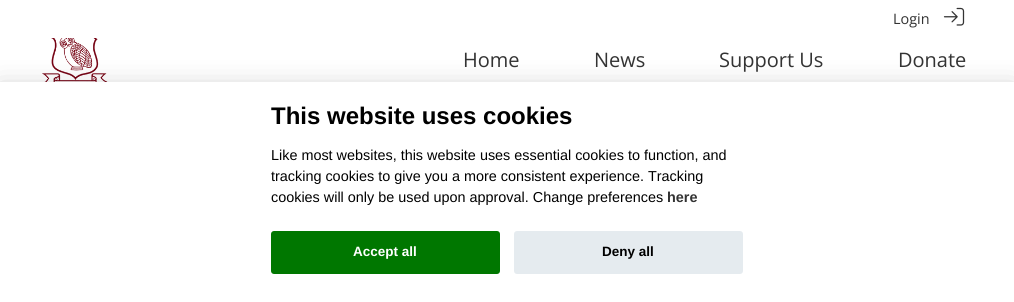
#include <cairo/cairo.h>
#include <math.h>
#include <stddef.h>

typedef struct { double x, y; const char *s; } line_t;
static cairo_t *cr;

static void rgb(unsigned color)
{
	cairo_set_source_rgb(cr, (color >> 16) / 255.0, (color >> 8 & 255) / 255.0, (color & 255) / 255.0);
}

static void rrect(double x, double y, double w, double h, double r)
{
	cairo_new_sub_path(cr);
	cairo_arc(cr, x + w - r, y + h - r, r, 0, M_PI / 2);
	cairo_arc(cr, x + r, y + h - r, r, M_PI / 2, M_PI);
	cairo_arc(cr, x + r, y + r, r, M_PI, 1.5 * M_PI);
	cairo_arc(cr, x + w - r, y + r, r, 1.5 * M_PI, 2 * M_PI);
	cairo_close_path(cr);
}

static void soft_shadow(double x, double y, double w, double h, double r, double blur, double alpha)
{
	cairo_push_group_with_content(cr, CAIRO_CONTENT_ALPHA);
	cairo_set_operator(cr, CAIRO_OPERATOR_SOURCE);
	for (int i = 15; i >= -15 && fmin(w, h) + blur * i / 3 > 0; i -= 2) {
		double e = blur * i / 6;
		cairo_set_source_rgba(cr, 0, 0, 0, alpha * erfc((i - 1) / 8.5) / 2);
		rrect(x - e, y - e, w + 2 * e, h + 2 * e, fmax(0, fmin(r + e + blur * .6, fmin(w, h) / 2 + e)));
		cairo_fill(cr);
	}
	cairo_pattern_t *soft = cairo_pop_group(cr);
	cairo_mask(cr, soft);
	cairo_pattern_destroy(soft);
}

static void image(const char *path, double x, double y, double w, double h)
{
	cairo_surface_t *image = cairo_image_surface_create_from_png(path);
	cairo_save(cr);
	cairo_set_source_surface(cr, image, x, y);
	cairo_rectangle(cr, x, y, w, h);
	cairo_fill(cr);
	cairo_restore(cr);
	cairo_surface_destroy(image);
}

int main(void) {
	cairo_surface_t *surface = cairo_image_surface_create(CAIRO_FORMAT_RGB24, 1014, 302);
	cr = cairo_create(surface);
	cairo_font_options_t *options = cairo_font_options_create();
	cairo_font_options_set_hint_metrics(options, CAIRO_HINT_METRICS_OFF);
	cairo_font_options_set_hint_style(options, CAIRO_HINT_STYLE_NONE);
	cairo_set_font_options(cr, options);
	cairo_set_miter_limit(cr, 4);
	rgb(0xffffff);
	cairo_paint(cr);
	image("img/1.png", 943, 7, 22, 19);
	image("img/2.png", 42, 38, 66, 44);
	rgb(0x020203);
	soft_shadow(0, 92, 1014, 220, 0, 15, 0.28);
	rgb(0xffffff);
	cairo_rectangle(cr, 0, 82, 1014, 220);
	cairo_fill(cr);
	rgb(0x007700);
	rrect(271, 231, 229, 43, 3);
	cairo_fill(cr);
	rgb(0xe5ebef);
	rrect(514, 231, 229, 43, 3);
	cairo_fill(cr);
	cairo_select_font_face(cr, "Open Sans", CAIRO_FONT_SLANT_NORMAL, CAIRO_FONT_WEIGHT_NORMAL);
	cairo_set_font_size(cr, 14.4);
	rgb(0x333333);
	cairo_move_to(cr, 893, 24);
	cairo_show_text(cr, "Login");
	cairo_set_font_size(cr, 20);
	{
		static const line_t items[] = {
			{463, 67, "Home"},
			{594, 67, "News"},
			{719, 67, "Support Us"},
			{898, 67, "Donate"},
		};
		for (size_t i = 0; i < sizeof items / sizeof *items; i++) {
			cairo_move_to(cr, items[i].x, items[i].y);
			cairo_show_text(cr, items[i].s);
		}
	}
	cairo_select_font_face(cr, "Liberation Sans", CAIRO_FONT_SLANT_NORMAL, CAIRO_FONT_WEIGHT_BOLD);
	cairo_set_font_size(cr, 24);
	rgb(0x000000);
	cairo_move_to(cr, 271, 124);
	cairo_show_text(cr, "This website uses cookies");
	cairo_select_font_face(cr, "Liberation Sans", CAIRO_FONT_SLANT_NORMAL, CAIRO_FONT_WEIGHT_NORMAL);
	cairo_set_font_size(cr, 14.4);
	{
		static const line_t items[] = {
			{271, 160, "Like most websites, this website uses essential cookies to function, and"},
			{271, 181, "tracking cookies to give you a more consistent experience. Tracking"},
			{271, 202, "cookies will only be used upon approval. Change preferences"},
		};
		for (size_t i = 0; i < sizeof items / sizeof *items; i++) {
			cairo_move_to(cr, items[i].x, items[i].y);
			cairo_show_text(cr, items[i].s);
		}
	}
	cairo_select_font_face(cr, "Liberation Sans", CAIRO_FONT_SLANT_NORMAL, CAIRO_FONT_WEIGHT_BOLD);
	rgb(0x333333);
	cairo_move_to(cr, 667, 202);
	cairo_show_text(cr, "here");
	cairo_set_font_size(cr, 13.5);
	rgb(0xffffff);
	cairo_move_to(cr, 353, 256);
	cairo_show_text(cr, "Accept all");
	rgb(0x000000);
	cairo_move_to(cr, 602, 256);
	cairo_show_text(cr, "Deny all");
	cairo_surface_write_to_png(surface, "page.png");
	cairo_font_options_destroy(options);
	cairo_destroy(cr);
	cairo_surface_destroy(surface);
	return 0;
}
